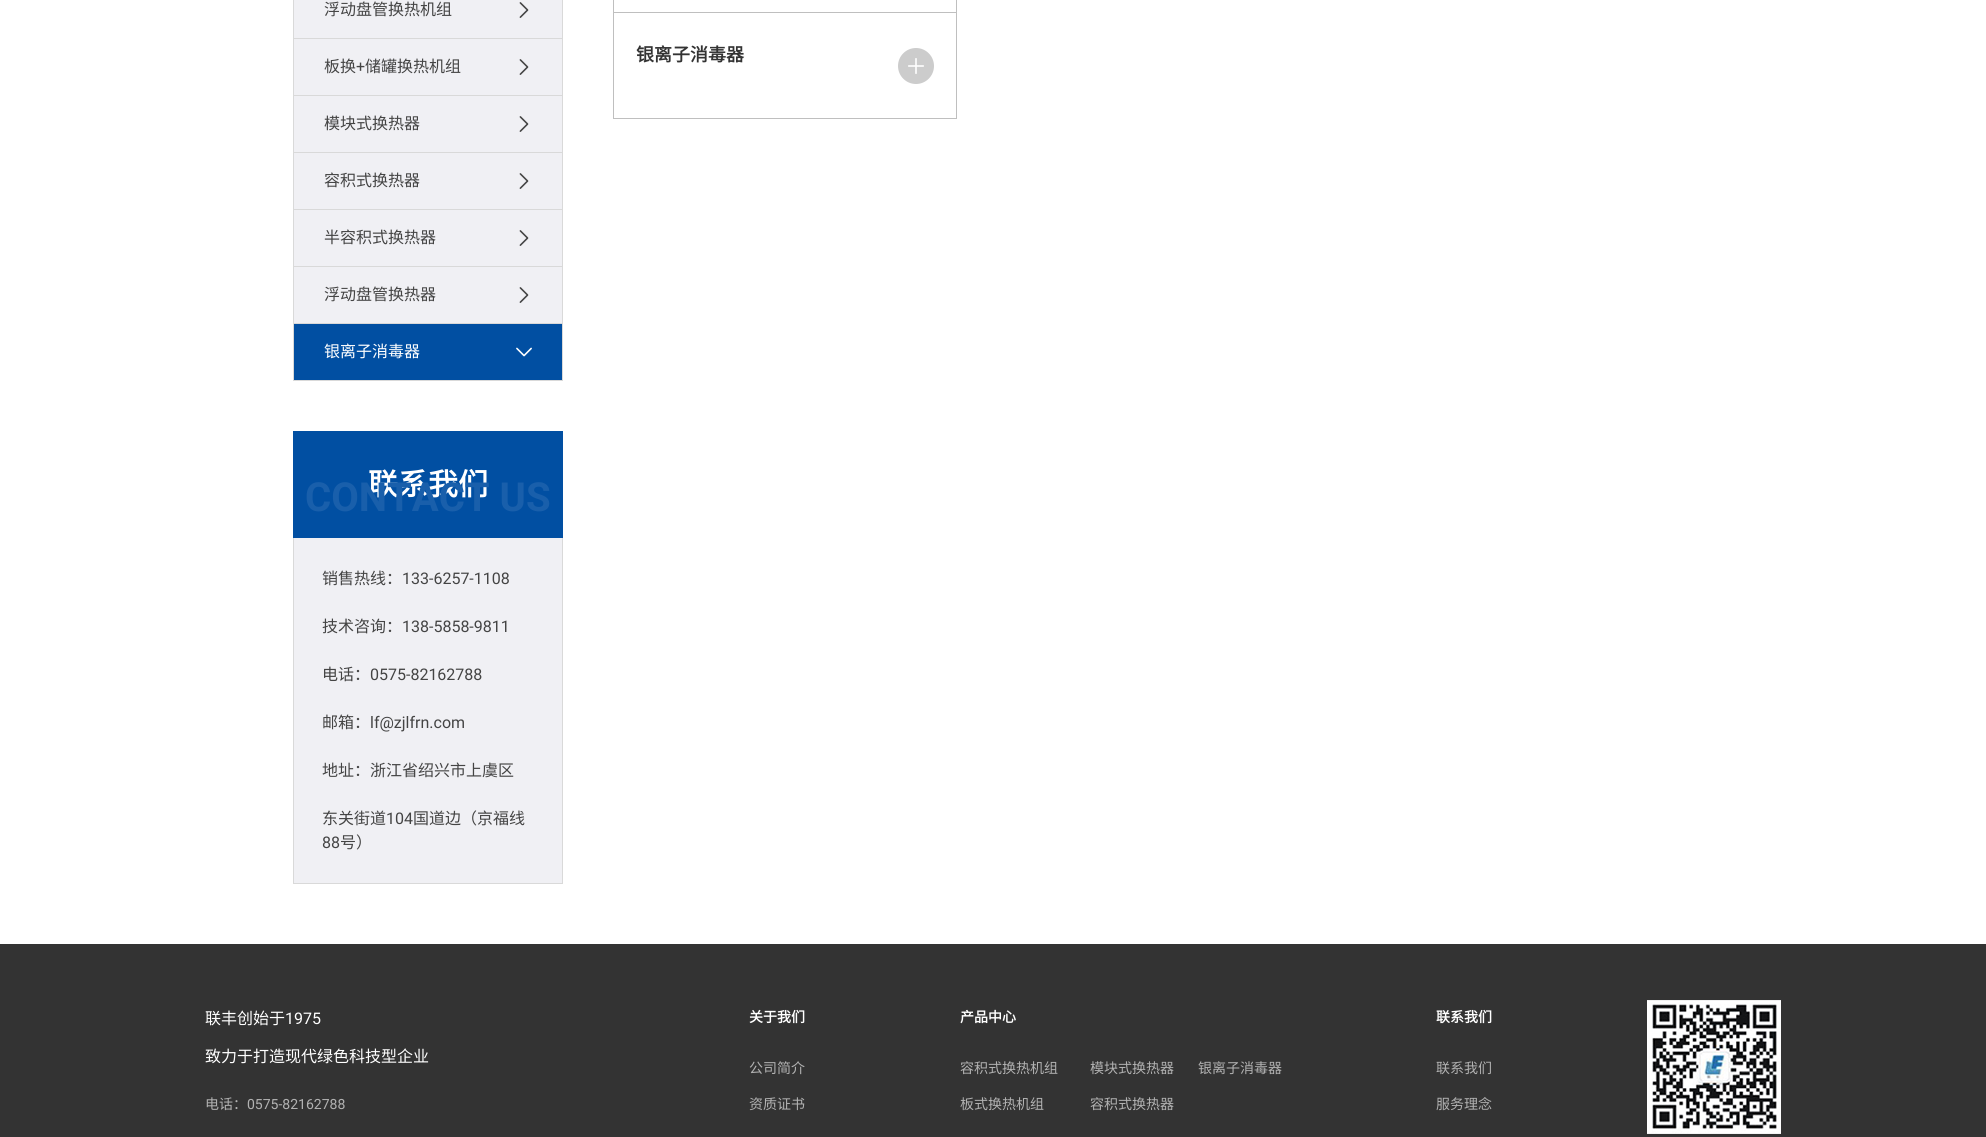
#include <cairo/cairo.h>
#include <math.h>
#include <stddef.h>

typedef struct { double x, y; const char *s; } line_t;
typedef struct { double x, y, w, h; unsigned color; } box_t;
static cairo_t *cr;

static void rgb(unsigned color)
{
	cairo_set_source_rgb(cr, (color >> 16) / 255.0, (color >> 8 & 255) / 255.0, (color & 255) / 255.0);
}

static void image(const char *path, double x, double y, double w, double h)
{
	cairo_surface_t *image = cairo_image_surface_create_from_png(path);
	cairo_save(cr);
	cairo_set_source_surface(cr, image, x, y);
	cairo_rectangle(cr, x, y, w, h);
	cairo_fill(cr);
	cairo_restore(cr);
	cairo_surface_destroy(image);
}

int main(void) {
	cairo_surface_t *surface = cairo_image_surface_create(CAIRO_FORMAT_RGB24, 1986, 1137);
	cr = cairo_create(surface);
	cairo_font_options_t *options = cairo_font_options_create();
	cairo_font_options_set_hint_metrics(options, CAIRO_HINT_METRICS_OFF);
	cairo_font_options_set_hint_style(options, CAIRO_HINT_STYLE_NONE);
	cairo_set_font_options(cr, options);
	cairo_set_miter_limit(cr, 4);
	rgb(0xffffff);
	cairo_paint(cr);
	{
		static const box_t items[] = {
			{294, 0, 268, 323, 0xf0f0f4},
			{562, 0, 1, 381, 0xd9d9d9},
			{293, 380, 270, 1, 0xd9d9d9},
			{293, 0, 1, 381, 0xd9d9d9},
		};
		for (size_t i = 0; i < sizeof items / sizeof *items; i++) {
			rgb(items[i].color);
			cairo_rectangle(cr, items[i].x, items[i].y, items[i].w, items[i].h);
			cairo_fill(cr);
		}
	}
	image("img/1.png", 519, 2, 10, 16);
	cairo_rectangle(cr, 294, 38, 268, 1);
	cairo_fill(cr);
	image("img/1.png", 519, 59, 10, 16);
	cairo_rectangle(cr, 294, 95, 268, 1);
	cairo_fill(cr);
	image("img/1.png", 519, 116, 10, 16);
	cairo_rectangle(cr, 294, 152, 268, 1);
	cairo_fill(cr);
	image("img/1.png", 519, 173, 10, 16);
	cairo_rectangle(cr, 294, 209, 268, 1);
	cairo_fill(cr);
	image("img/1.png", 519, 230, 10, 16);
	cairo_rectangle(cr, 294, 266, 268, 1);
	cairo_fill(cr);
	image("img/1.png", 519, 287, 10, 16);
	rgb(0x014fa2);
	cairo_rectangle(cr, 294, 324, 268, 56);
	cairo_fill(cr);
	rgb(0xd9d9d9);
	cairo_rectangle(cr, 294, 323, 268, 1);
	cairo_fill(cr);
	image("img/2.png", 516, 347, 16, 10);
	{
		static const box_t items[] = {
			{293, 431, 270, 107, 0x014fa2},
			{294, 538, 268, 345, 0xf0f0f4},
			{562, 538, 1, 346, 0xd9d9d9},
			{293, 883, 270, 1, 0xd9d9d9},
			{293, 538, 1, 346, 0xd9d9d9},
		};
		for (size_t i = 0; i < sizeof items / sizeof *items; i++) {
			rgb(items[i].color);
			cairo_rectangle(cr, items[i].x, items[i].y, items[i].w, items[i].h);
			cairo_fill(cr);
		}
	}
	cairo_rectangle(cr, 613.5, -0.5, 343, 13);
	rgb(0xbfbfbf);
	cairo_set_line_width(cr, 1);
	cairo_stroke(cr);
	{
		static const box_t items[] = {
			{956, 13, 1, 106, 0xbfbfbf},
			{613, 118, 344, 1, 0xbfbfbf},
			{613, 13, 1, 106, 0xbfbfbf},
		};
		for (size_t i = 0; i < sizeof items / sizeof *items; i++) {
			rgb(items[i].color);
			cairo_rectangle(cr, items[i].x, items[i].y, items[i].w, items[i].h);
			cairo_fill(cr);
		}
	}
	rgb(0xcccccc);
	cairo_arc(cr, 916, 66, 18, 0, 2 * M_PI);
	cairo_fill(cr);
	image("img/3.png", 908, 58, 16, 16);
	rgb(0x333333);
	cairo_rectangle(cr, 0, 944, 1986, 193);
	cairo_fill(cr);
	image("img/4.png", 1647, 1000, 134, 134);
	cairo_select_font_face(cr, "Noto Sans CJK SC", CAIRO_FONT_SLANT_NORMAL, CAIRO_FONT_WEIGHT_NORMAL);
	cairo_set_font_size(cr, 16);
	rgb(0x444444);
	cairo_move_to(cr, 324, 15);
	cairo_show_text(cr, "浮动盘管换热机组");
	cairo_move_to(cr, 324, 72);
	cairo_show_text(cr, "板换");
	cairo_select_font_face(cr, "Roboto", CAIRO_FONT_SLANT_NORMAL, CAIRO_FONT_WEIGHT_NORMAL);
	cairo_move_to(cr, 356, 72);
	cairo_show_text(cr, "+");
	cairo_select_font_face(cr, "Noto Sans CJK SC", CAIRO_FONT_SLANT_NORMAL, CAIRO_FONT_WEIGHT_NORMAL);
	{
		static const line_t items[] = {
			{365, 72, "储罐换热机组"},
			{324, 129, "模块式换热器"},
			{324, 186, "容积式换热器"},
			{324, 243, "半容积式换热器"},
			{324, 300, "浮动盘管换热器"},
		};
		for (size_t i = 0; i < sizeof items / sizeof *items; i++) {
			cairo_move_to(cr, items[i].x, items[i].y);
			cairo_show_text(cr, items[i].s);
		}
	}
	rgb(0xffffff);
	cairo_move_to(cr, 324, 357);
	cairo_show_text(cr, "银离子消毒器");
	cairo_select_font_face(cr, "Noto Sans CJK SC", CAIRO_FONT_SLANT_NORMAL, CAIRO_FONT_WEIGHT_BOLD);
	cairo_set_font_size(cr, 30);
	cairo_move_to(cr, 368, 495);
	cairo_show_text(cr, "联系我们");
	cairo_select_font_face(cr, "Roboto", CAIRO_FONT_SLANT_NORMAL, CAIRO_FONT_WEIGHT_BOLD);
	cairo_set_font_size(cr, 40);
	rgb(0x195fab);
	cairo_move_to(cr, 305, 511);
	cairo_show_text(cr, "CONTACT US");
	cairo_select_font_face(cr, "Noto Sans CJK SC", CAIRO_FONT_SLANT_NORMAL, CAIRO_FONT_WEIGHT_NORMAL);
	cairo_set_font_size(cr, 16);
	rgb(0x444444);
	cairo_move_to(cr, 322, 584);
	cairo_show_text(cr, "销售热线：");
	cairo_select_font_face(cr, "Roboto", CAIRO_FONT_SLANT_NORMAL, CAIRO_FONT_WEIGHT_NORMAL);
	cairo_move_to(cr, 402, 584);
	cairo_show_text(cr, "133-6257-1108");
	cairo_select_font_face(cr, "Noto Sans CJK SC", CAIRO_FONT_SLANT_NORMAL, CAIRO_FONT_WEIGHT_NORMAL);
	cairo_move_to(cr, 322, 632);
	cairo_show_text(cr, "技术咨询：");
	cairo_select_font_face(cr, "Roboto", CAIRO_FONT_SLANT_NORMAL, CAIRO_FONT_WEIGHT_NORMAL);
	cairo_move_to(cr, 402, 632);
	cairo_show_text(cr, "138-5858-9811");
	cairo_select_font_face(cr, "Noto Sans CJK SC", CAIRO_FONT_SLANT_NORMAL, CAIRO_FONT_WEIGHT_NORMAL);
	cairo_move_to(cr, 322, 680);
	cairo_show_text(cr, "电话：");
	cairo_select_font_face(cr, "Roboto", CAIRO_FONT_SLANT_NORMAL, CAIRO_FONT_WEIGHT_NORMAL);
	cairo_move_to(cr, 370, 680);
	cairo_show_text(cr, "0575-82162788");
	cairo_select_font_face(cr, "Noto Sans CJK SC", CAIRO_FONT_SLANT_NORMAL, CAIRO_FONT_WEIGHT_NORMAL);
	cairo_move_to(cr, 322, 728);
	cairo_show_text(cr, "邮箱：");
	cairo_select_font_face(cr, "Roboto", CAIRO_FONT_SLANT_NORMAL, CAIRO_FONT_WEIGHT_NORMAL);
	cairo_move_to(cr, 370, 728);
	cairo_show_text(cr, "lf@zjlfrn.com");
	cairo_select_font_face(cr, "Noto Sans CJK SC", CAIRO_FONT_SLANT_NORMAL, CAIRO_FONT_WEIGHT_NORMAL);
	cairo_move_to(cr, 322, 776);
	cairo_show_text(cr, "地址：浙江省绍兴市上虞区");
	cairo_move_to(cr, 322, 824);
	cairo_show_text(cr, "东关街道");
	cairo_select_font_face(cr, "Roboto", CAIRO_FONT_SLANT_NORMAL, CAIRO_FONT_WEIGHT_NORMAL);
	cairo_move_to(cr, 386, 824);
	cairo_show_text(cr, "104");
	cairo_select_font_face(cr, "Noto Sans CJK SC", CAIRO_FONT_SLANT_NORMAL, CAIRO_FONT_WEIGHT_NORMAL);
	cairo_move_to(cr, 413, 824);
	cairo_show_text(cr, "国道边（京福线");
	cairo_select_font_face(cr, "Roboto", CAIRO_FONT_SLANT_NORMAL, CAIRO_FONT_WEIGHT_NORMAL);
	cairo_move_to(cr, 322, 848);
	cairo_show_text(cr, "88");
	cairo_select_font_face(cr, "Noto Sans CJK SC", CAIRO_FONT_SLANT_NORMAL, CAIRO_FONT_WEIGHT_NORMAL);
	cairo_move_to(cr, 340, 848);
	cairo_show_text(cr, "号）");
	cairo_select_font_face(cr, "Noto Sans CJK SC", CAIRO_FONT_SLANT_NORMAL, CAIRO_FONT_WEIGHT_BOLD);
	cairo_set_font_size(cr, 18);
	rgb(0x333333);
	cairo_move_to(cr, 636, 61);
	cairo_show_text(cr, "银离子消毒器");
	cairo_select_font_face(cr, "Noto Sans CJK SC", CAIRO_FONT_SLANT_NORMAL, CAIRO_FONT_WEIGHT_NORMAL);
	cairo_set_font_size(cr, 16);
	rgb(0xffffff);
	cairo_move_to(cr, 205, 1024);
	cairo_show_text(cr, "联丰创始于");
	cairo_select_font_face(cr, "Roboto", CAIRO_FONT_SLANT_NORMAL, CAIRO_FONT_WEIGHT_NORMAL);
	cairo_move_to(cr, 285, 1024);
	cairo_show_text(cr, "1975");
	cairo_select_font_face(cr, "Noto Sans CJK SC", CAIRO_FONT_SLANT_NORMAL, CAIRO_FONT_WEIGHT_NORMAL);
	cairo_move_to(cr, 205, 1062);
	cairo_show_text(cr, "致力于打造现代绿色科技型企业");
	cairo_set_font_size(cr, 14);
	rgb(0xb2b2b2);
	cairo_move_to(cr, 205, 1109);
	cairo_show_text(cr, "电话：");
	cairo_select_font_face(cr, "Roboto", CAIRO_FONT_SLANT_NORMAL, CAIRO_FONT_WEIGHT_NORMAL);
	cairo_move_to(cr, 247, 1109);
	cairo_show_text(cr, "0575-82162788");
	cairo_select_font_face(cr, "Noto Sans CJK SC", CAIRO_FONT_SLANT_NORMAL, CAIRO_FONT_WEIGHT_BOLD);
	rgb(0xffffff);
	cairo_move_to(cr, 749, 1022);
	cairo_show_text(cr, "关于我们");
	cairo_select_font_face(cr, "Noto Sans CJK SC", CAIRO_FONT_SLANT_NORMAL, CAIRO_FONT_WEIGHT_NORMAL);
	rgb(0xb2b2b2);
	cairo_move_to(cr, 749, 1073);
	cairo_show_text(cr, "公司简介");
	cairo_move_to(cr, 749, 1109);
	cairo_show_text(cr, "资质证书");
	cairo_select_font_face(cr, "Noto Sans CJK SC", CAIRO_FONT_SLANT_NORMAL, CAIRO_FONT_WEIGHT_BOLD);
	rgb(0xffffff);
	cairo_move_to(cr, 960, 1022);
	cairo_show_text(cr, "产品中心");
	cairo_select_font_face(cr, "Noto Sans CJK SC", CAIRO_FONT_SLANT_NORMAL, CAIRO_FONT_WEIGHT_NORMAL);
	rgb(0xb2b2b2);
	{
		static const line_t items[] = {
			{960, 1073, "容积式换热机组"},
			{960, 1109, "板式换热机组"},
			{1090, 1073, "模块式换热器"},
			{1090, 1109, "容积式换热器"},
			{1198, 1073, "银离子消毒器"},
		};
		for (size_t i = 0; i < sizeof items / sizeof *items; i++) {
			cairo_move_to(cr, items[i].x, items[i].y);
			cairo_show_text(cr, items[i].s);
		}
	}
	cairo_select_font_face(cr, "Noto Sans CJK SC", CAIRO_FONT_SLANT_NORMAL, CAIRO_FONT_WEIGHT_BOLD);
	rgb(0xffffff);
	cairo_move_to(cr, 1436, 1022);
	cairo_show_text(cr, "联系我们");
	cairo_select_font_face(cr, "Noto Sans CJK SC", CAIRO_FONT_SLANT_NORMAL, CAIRO_FONT_WEIGHT_NORMAL);
	rgb(0xb2b2b2);
	cairo_move_to(cr, 1436, 1073);
	cairo_show_text(cr, "联系我们");
	cairo_move_to(cr, 1436, 1109);
	cairo_show_text(cr, "服务理念");
	cairo_surface_write_to_png(surface, "page.png");
	cairo_font_options_destroy(options);
	cairo_destroy(cr);
	cairo_surface_destroy(surface);
	return 0;
}
